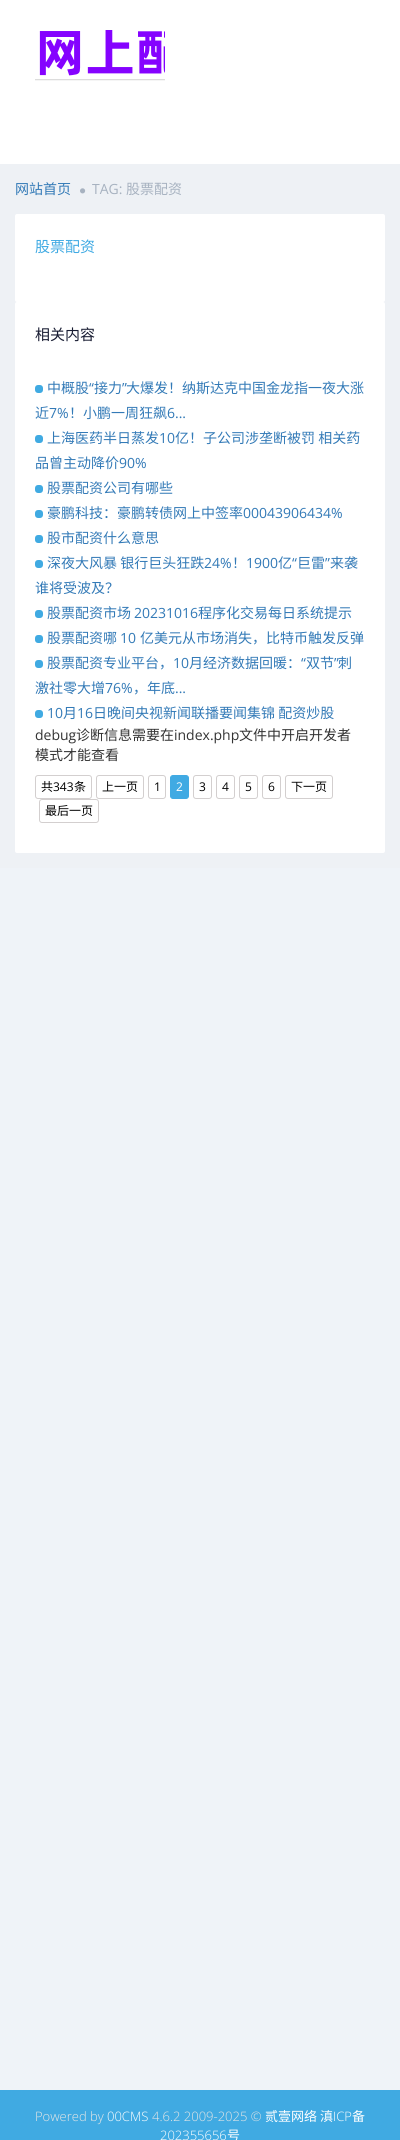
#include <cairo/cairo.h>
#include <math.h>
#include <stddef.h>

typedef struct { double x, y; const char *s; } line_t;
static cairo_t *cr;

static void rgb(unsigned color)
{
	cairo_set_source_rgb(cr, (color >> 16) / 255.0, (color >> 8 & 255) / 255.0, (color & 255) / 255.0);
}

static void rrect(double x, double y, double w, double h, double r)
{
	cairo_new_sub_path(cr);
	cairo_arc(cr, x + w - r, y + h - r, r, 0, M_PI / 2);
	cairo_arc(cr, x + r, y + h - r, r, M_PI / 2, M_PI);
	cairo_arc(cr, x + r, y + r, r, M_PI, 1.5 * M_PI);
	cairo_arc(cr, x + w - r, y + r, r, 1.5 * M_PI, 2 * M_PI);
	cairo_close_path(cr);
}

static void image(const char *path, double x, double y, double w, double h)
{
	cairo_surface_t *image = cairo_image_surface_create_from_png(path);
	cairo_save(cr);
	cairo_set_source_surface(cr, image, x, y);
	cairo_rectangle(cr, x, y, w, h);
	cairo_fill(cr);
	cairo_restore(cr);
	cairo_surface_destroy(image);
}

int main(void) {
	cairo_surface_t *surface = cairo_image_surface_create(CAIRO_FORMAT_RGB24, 400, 2140);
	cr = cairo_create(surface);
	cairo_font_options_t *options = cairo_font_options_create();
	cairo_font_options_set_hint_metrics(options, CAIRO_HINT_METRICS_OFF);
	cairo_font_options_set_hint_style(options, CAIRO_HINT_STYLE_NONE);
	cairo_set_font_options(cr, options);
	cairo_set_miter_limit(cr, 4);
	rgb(0xffffff);
	cairo_paint(cr);
	image("img/1.png", 35, 30, 130, 51);
	rgb(0xeff3f8);
	cairo_rectangle(cr, 0, 868, 400, 1222);
	cairo_fill(cr);
	rgb(0xeef1f5);
	cairo_rectangle(cr, 0, 164, 400, 704);
	cairo_fill(cr);
	image("img/2.png", 80, 188, 6, 6);
	rgb(0xffffff);
	rrect(15, 214, 370, 88, 2);
	cairo_fill(cr);
	rrect(15, 302, 370, 551, 2);
	cairo_fill(cr);
	rgb(0x40aae2);
	rrect(35, 385, 8, 8, 3);
	cairo_fill(cr);
	rrect(35, 435, 8, 8, 3);
	cairo_fill(cr);
	rrect(35, 485, 8, 8, 3);
	cairo_fill(cr);
	rrect(35, 510, 8, 8, 3);
	cairo_fill(cr);
	rrect(35, 535, 8, 8, 3);
	cairo_fill(cr);
	rrect(35, 560, 8, 8, 3);
	cairo_fill(cr);
	rrect(35, 610, 8, 8, 3);
	cairo_fill(cr);
	rrect(35, 635, 8, 8, 3);
	cairo_fill(cr);
	rrect(35, 660, 8, 8, 3);
	cairo_fill(cr);
	rrect(35, 710, 8, 8, 3);
	cairo_fill(cr);
	rrect(35.5, 775.5, 56, 23, 2.5);
	rgb(0xd3cfcf);
	cairo_set_line_width(cr, 1);
	cairo_stroke(cr);
	rrect(96.5, 775.5, 47, 23, 2.5);
	cairo_stroke(cr);
	rrect(148.5, 775.5, 17, 23, 2.5);
	cairo_stroke(cr);
	rgb(0x40aae3);
	rrect(170.5, 775.5, 18, 23, 2.5);
	cairo_fill_preserve(cr);
	cairo_stroke(cr);
	rrect(193.5, 775.5, 18, 23, 2.5);
	rgb(0xd3cfcf);
	cairo_stroke(cr);
	rrect(216.5, 775.5, 18, 23, 2.5);
	cairo_stroke(cr);
	rrect(239.5, 775.5, 18, 23, 2.5);
	cairo_stroke(cr);
	rrect(262.5, 775.5, 18, 23, 2.5);
	cairo_stroke(cr);
	rrect(285.5, 775.5, 47, 23, 2.5);
	cairo_stroke(cr);
	rrect(39.5, 799.5, 59, 23, 2.5);
	cairo_stroke(cr);
	rgb(0x40aae2);
	cairo_rectangle(cr, 0, 2090, 400, 50);
	cairo_fill(cr);
	cairo_select_font_face(cr, "Noto Sans CJK SC", CAIRO_FONT_SLANT_NORMAL, CAIRO_FONT_WEIGHT_NORMAL);
	cairo_set_font_size(cr, 14);
	rgb(0x337ab7);
	cairo_move_to(cr, 15, 194);
	cairo_show_text(cr, "网站首页");
	cairo_select_font_face(cr, "Open Sans", CAIRO_FONT_SLANT_NORMAL, CAIRO_FONT_WEIGHT_NORMAL);
	rgb(0xa7b2c0);
	cairo_move_to(cr, 92, 194);
	cairo_show_text(cr, "TAG:");
	cairo_select_font_face(cr, "Noto Sans CJK SC", CAIRO_FONT_SLANT_NORMAL, CAIRO_FONT_WEIGHT_NORMAL);
	cairo_move_to(cr, 126, 194);
	cairo_show_text(cr, "股票配资");
	cairo_set_font_size(cr, 15);
	rgb(0x40aae3);
	cairo_move_to(cr, 35, 252);
	cairo_show_text(cr, "股票配资");
	rgb(0x181c32);
	cairo_move_to(cr, 35, 340);
	cairo_show_text(cr, "相关内容");
	cairo_set_font_size(cr, 14);
	rgb(0x337ab7);
	cairo_move_to(cr, 47, 393);
	cairo_show_text(cr, "中概股");
	cairo_select_font_face(cr, "Open Sans", CAIRO_FONT_SLANT_NORMAL, CAIRO_FONT_WEIGHT_NORMAL);
	cairo_move_to(cr, 89, 393);
	cairo_show_text(cr, "“");
	cairo_select_font_face(cr, "Noto Sans CJK SC", CAIRO_FONT_SLANT_NORMAL, CAIRO_FONT_WEIGHT_NORMAL);
	cairo_move_to(cr, 94, 393);
	cairo_show_text(cr, "接力");
	cairo_select_font_face(cr, "Open Sans", CAIRO_FONT_SLANT_NORMAL, CAIRO_FONT_WEIGHT_NORMAL);
	cairo_move_to(cr, 122, 393);
	cairo_show_text(cr, "”");
	cairo_select_font_face(cr, "Noto Sans CJK SC", CAIRO_FONT_SLANT_NORMAL, CAIRO_FONT_WEIGHT_NORMAL);
	cairo_move_to(cr, 126, 393);
	cairo_show_text(cr, "大爆发！纳斯达克中国金龙指一夜大涨");
	cairo_move_to(cr, 35, 418);
	cairo_show_text(cr, "近");
	cairo_select_font_face(cr, "Open Sans", CAIRO_FONT_SLANT_NORMAL, CAIRO_FONT_WEIGHT_NORMAL);
	cairo_move_to(cr, 49, 418);
	cairo_show_text(cr, "7%");
	cairo_select_font_face(cr, "Noto Sans CJK SC", CAIRO_FONT_SLANT_NORMAL, CAIRO_FONT_WEIGHT_NORMAL);
	cairo_move_to(cr, 69, 418);
	cairo_show_text(cr, "！小鹏一周狂飙");
	cairo_select_font_face(cr, "Open Sans", CAIRO_FONT_SLANT_NORMAL, CAIRO_FONT_WEIGHT_NORMAL);
	cairo_move_to(cr, 167, 418);
	cairo_show_text(cr, "6...");
	cairo_select_font_face(cr, "Noto Sans CJK SC", CAIRO_FONT_SLANT_NORMAL, CAIRO_FONT_WEIGHT_NORMAL);
	cairo_move_to(cr, 47, 443);
	cairo_show_text(cr, "上海医药半日蒸发");
	cairo_select_font_face(cr, "Open Sans", CAIRO_FONT_SLANT_NORMAL, CAIRO_FONT_WEIGHT_NORMAL);
	cairo_move_to(cr, 159, 443);
	cairo_show_text(cr, "10");
	cairo_select_font_face(cr, "Noto Sans CJK SC", CAIRO_FONT_SLANT_NORMAL, CAIRO_FONT_WEIGHT_NORMAL);
	cairo_move_to(cr, 175, 443);
	cairo_show_text(cr, "亿！子公司涉垄断被罚 相关药");
	cairo_move_to(cr, 35, 468);
	cairo_show_text(cr, "品曾主动降价");
	cairo_select_font_face(cr, "Open Sans", CAIRO_FONT_SLANT_NORMAL, CAIRO_FONT_WEIGHT_NORMAL);
	cairo_move_to(cr, 119, 468);
	cairo_show_text(cr, "90%");
	cairo_select_font_face(cr, "Noto Sans CJK SC", CAIRO_FONT_SLANT_NORMAL, CAIRO_FONT_WEIGHT_NORMAL);
	cairo_move_to(cr, 47, 493);
	cairo_show_text(cr, "股票配资公司有哪些");
	cairo_move_to(cr, 47, 518);
	cairo_show_text(cr, "豪鹏科技：豪鹏转债网上中签率");
	cairo_select_font_face(cr, "Open Sans", CAIRO_FONT_SLANT_NORMAL, CAIRO_FONT_WEIGHT_NORMAL);
	cairo_move_to(cr, 243, 518);
	cairo_show_text(cr, "00043906434%");
	cairo_select_font_face(cr, "Noto Sans CJK SC", CAIRO_FONT_SLANT_NORMAL, CAIRO_FONT_WEIGHT_NORMAL);
	cairo_move_to(cr, 47, 543);
	cairo_show_text(cr, "股市配资什么意思");
	cairo_move_to(cr, 47, 568);
	cairo_show_text(cr, "深夜大风暴 银行巨头狂跌");
	cairo_select_font_face(cr, "Open Sans", CAIRO_FONT_SLANT_NORMAL, CAIRO_FONT_WEIGHT_NORMAL);
	cairo_move_to(cr, 204, 568);
	cairo_show_text(cr, "24%");
	cairo_select_font_face(cr, "Noto Sans CJK SC", CAIRO_FONT_SLANT_NORMAL, CAIRO_FONT_WEIGHT_NORMAL);
	cairo_move_to(cr, 232, 568);
	cairo_show_text(cr, "！");
	cairo_select_font_face(cr, "Open Sans", CAIRO_FONT_SLANT_NORMAL, CAIRO_FONT_WEIGHT_NORMAL);
	cairo_move_to(cr, 246, 568);
	cairo_show_text(cr, "1900");
	cairo_select_font_face(cr, "Noto Sans CJK SC", CAIRO_FONT_SLANT_NORMAL, CAIRO_FONT_WEIGHT_NORMAL);
	cairo_move_to(cr, 278, 568);
	cairo_show_text(cr, "亿");
	cairo_select_font_face(cr, "Open Sans", CAIRO_FONT_SLANT_NORMAL, CAIRO_FONT_WEIGHT_NORMAL);
	cairo_move_to(cr, 292, 568);
	cairo_show_text(cr, "“");
	cairo_select_font_face(cr, "Noto Sans CJK SC", CAIRO_FONT_SLANT_NORMAL, CAIRO_FONT_WEIGHT_NORMAL);
	cairo_move_to(cr, 297, 568);
	cairo_show_text(cr, "巨雷");
	cairo_select_font_face(cr, "Open Sans", CAIRO_FONT_SLANT_NORMAL, CAIRO_FONT_WEIGHT_NORMAL);
	cairo_move_to(cr, 325, 568);
	cairo_show_text(cr, "”");
	cairo_select_font_face(cr, "Noto Sans CJK SC", CAIRO_FONT_SLANT_NORMAL, CAIRO_FONT_WEIGHT_NORMAL);
	{
		static const line_t items[] = {
			{330, 568, "来袭"},
			{35, 593, "谁将受波及？"},
			{47, 618, "股票配资市场"},
		};
		for (size_t i = 0; i < sizeof items / sizeof *items; i++) {
			cairo_move_to(cr, items[i].x, items[i].y);
			cairo_show_text(cr, items[i].s);
		}
	}
	cairo_select_font_face(cr, "Open Sans", CAIRO_FONT_SLANT_NORMAL, CAIRO_FONT_WEIGHT_NORMAL);
	cairo_move_to(cr, 134, 618);
	cairo_show_text(cr, "20231016");
	cairo_select_font_face(cr, "Noto Sans CJK SC", CAIRO_FONT_SLANT_NORMAL, CAIRO_FONT_WEIGHT_NORMAL);
	cairo_move_to(cr, 198, 618);
	cairo_show_text(cr, "程序化交易每日系统提示");
	cairo_move_to(cr, 47, 643);
	cairo_show_text(cr, "股票配资哪");
	cairo_select_font_face(cr, "Open Sans", CAIRO_FONT_SLANT_NORMAL, CAIRO_FONT_WEIGHT_NORMAL);
	cairo_move_to(cr, 120, 643);
	cairo_show_text(cr, "10");
	cairo_select_font_face(cr, "Noto Sans CJK SC", CAIRO_FONT_SLANT_NORMAL, CAIRO_FONT_WEIGHT_NORMAL);
	cairo_move_to(cr, 140, 643);
	cairo_show_text(cr, "亿美元从市场消失，比特币触发反弹");
	cairo_move_to(cr, 47, 668);
	cairo_show_text(cr, "股票配资专业平台，");
	cairo_select_font_face(cr, "Open Sans", CAIRO_FONT_SLANT_NORMAL, CAIRO_FONT_WEIGHT_NORMAL);
	cairo_move_to(cr, 173, 668);
	cairo_show_text(cr, "10");
	cairo_select_font_face(cr, "Noto Sans CJK SC", CAIRO_FONT_SLANT_NORMAL, CAIRO_FONT_WEIGHT_NORMAL);
	cairo_move_to(cr, 189, 668);
	cairo_show_text(cr, "月经济数据回暖：");
	cairo_select_font_face(cr, "Open Sans", CAIRO_FONT_SLANT_NORMAL, CAIRO_FONT_WEIGHT_NORMAL);
	cairo_move_to(cr, 301, 668);
	cairo_show_text(cr, "“");
	cairo_select_font_face(cr, "Noto Sans CJK SC", CAIRO_FONT_SLANT_NORMAL, CAIRO_FONT_WEIGHT_NORMAL);
	cairo_move_to(cr, 306, 668);
	cairo_show_text(cr, "双节");
	cairo_select_font_face(cr, "Open Sans", CAIRO_FONT_SLANT_NORMAL, CAIRO_FONT_WEIGHT_NORMAL);
	cairo_move_to(cr, 334, 668);
	cairo_show_text(cr, "”");
	cairo_select_font_face(cr, "Noto Sans CJK SC", CAIRO_FONT_SLANT_NORMAL, CAIRO_FONT_WEIGHT_NORMAL);
	cairo_move_to(cr, 338, 668);
	cairo_show_text(cr, "刺");
	cairo_move_to(cr, 35, 693);
	cairo_show_text(cr, "激社零大增");
	cairo_select_font_face(cr, "Open Sans", CAIRO_FONT_SLANT_NORMAL, CAIRO_FONT_WEIGHT_NORMAL);
	cairo_move_to(cr, 105, 693);
	cairo_show_text(cr, "76%");
	cairo_select_font_face(cr, "Noto Sans CJK SC", CAIRO_FONT_SLANT_NORMAL, CAIRO_FONT_WEIGHT_NORMAL);
	cairo_move_to(cr, 133, 693);
	cairo_show_text(cr, "，年底");
	cairo_select_font_face(cr, "Open Sans", CAIRO_FONT_SLANT_NORMAL, CAIRO_FONT_WEIGHT_NORMAL);
	cairo_move_to(cr, 175, 693);
	cairo_show_text(cr, "...");
	cairo_move_to(cr, 47, 718);
	cairo_show_text(cr, "10");
	cairo_select_font_face(cr, "Noto Sans CJK SC", CAIRO_FONT_SLANT_NORMAL, CAIRO_FONT_WEIGHT_NORMAL);
	cairo_move_to(cr, 63, 718);
	cairo_show_text(cr, "月");
	cairo_select_font_face(cr, "Open Sans", CAIRO_FONT_SLANT_NORMAL, CAIRO_FONT_WEIGHT_NORMAL);
	cairo_move_to(cr, 77, 718);
	cairo_show_text(cr, "16");
	cairo_select_font_face(cr, "Noto Sans CJK SC", CAIRO_FONT_SLANT_NORMAL, CAIRO_FONT_WEIGHT_NORMAL);
	cairo_move_to(cr, 93, 718);
	cairo_show_text(cr, "日晚间央视新闻联播要闻集锦 配资炒股");
	cairo_select_font_face(cr, "Open Sans", CAIRO_FONT_SLANT_NORMAL, CAIRO_FONT_WEIGHT_NORMAL);
	rgb(0x333333);
	cairo_move_to(cr, 35, 740);
	cairo_show_text(cr, "debug");
	cairo_select_font_face(cr, "Noto Sans CJK SC", CAIRO_FONT_SLANT_NORMAL, CAIRO_FONT_WEIGHT_NORMAL);
	cairo_move_to(cr, 76, 740);
	cairo_show_text(cr, "诊断信息需要在");
	cairo_select_font_face(cr, "Open Sans", CAIRO_FONT_SLANT_NORMAL, CAIRO_FONT_WEIGHT_NORMAL);
	cairo_move_to(cr, 174, 740);
	cairo_show_text(cr, "index.php");
	cairo_select_font_face(cr, "Noto Sans CJK SC", CAIRO_FONT_SLANT_NORMAL, CAIRO_FONT_WEIGHT_NORMAL);
	cairo_move_to(cr, 239, 740);
	cairo_show_text(cr, "文件中开启开发者");
	cairo_move_to(cr, 35, 760);
	cairo_show_text(cr, "模式才能查看");
	cairo_set_font_size(cr, 12);
	rgb(0x000000);
	cairo_move_to(cr, 41, 791);
	cairo_show_text(cr, "共");
	cairo_select_font_face(cr, "Open Sans", CAIRO_FONT_SLANT_NORMAL, CAIRO_FONT_WEIGHT_NORMAL);
	cairo_move_to(cr, 53, 791);
	cairo_show_text(cr, "343");
	cairo_select_font_face(cr, "Noto Sans CJK SC", CAIRO_FONT_SLANT_NORMAL, CAIRO_FONT_WEIGHT_NORMAL);
	cairo_move_to(cr, 74, 791);
	cairo_show_text(cr, "条");
	cairo_move_to(cr, 102, 791);
	cairo_show_text(cr, "上一页");
	cairo_select_font_face(cr, "Open Sans", CAIRO_FONT_SLANT_NORMAL, CAIRO_FONT_WEIGHT_NORMAL);
	cairo_move_to(cr, 154, 791);
	cairo_show_text(cr, "1");
	rgb(0xffffff);
	cairo_move_to(cr, 176, 791);
	cairo_show_text(cr, "2");
	rgb(0x000000);
	{
		static const line_t items[] = {
			{199, 791, "3"},
			{222, 791, "4"},
			{245, 791, "5"},
			{268, 791, "6"},
		};
		for (size_t i = 0; i < sizeof items / sizeof *items; i++) {
			cairo_move_to(cr, items[i].x, items[i].y);
			cairo_show_text(cr, items[i].s);
		}
	}
	cairo_select_font_face(cr, "Noto Sans CJK SC", CAIRO_FONT_SLANT_NORMAL, CAIRO_FONT_WEIGHT_NORMAL);
	cairo_move_to(cr, 291, 791);
	cairo_show_text(cr, "下一页");
	cairo_move_to(cr, 45, 815);
	cairo_show_text(cr, "最后一页");
	cairo_select_font_face(cr, "Open Sans Light", CAIRO_FONT_SLANT_NORMAL, CAIRO_FONT_WEIGHT_NORMAL);
	cairo_set_font_size(cr, 13);
	rgb(0xe6e6e5);
	cairo_move_to(cr, 35, 2121);
	cairo_show_text(cr, "Powered by");
	rgb(0xffffff);
	cairo_move_to(cr, 107, 2121);
	cairo_show_text(cr, "00CMS");
	rgb(0xe6e6e5);
	cairo_move_to(cr, 152, 2121);
	cairo_show_text(cr, "4.6.2 2009-2025 ©");
	cairo_select_font_face(cr, "Noto Sans CJK SC", CAIRO_FONT_SLANT_NORMAL, CAIRO_FONT_WEIGHT_NORMAL);
	rgb(0xffffff);
	cairo_move_to(cr, 265, 2121);
	cairo_show_text(cr, "贰壹网络");
	cairo_move_to(cr, 320, 2121);
	cairo_show_text(cr, "滇");
	cairo_select_font_face(cr, "Open Sans Light", CAIRO_FONT_SLANT_NORMAL, CAIRO_FONT_WEIGHT_NORMAL);
	cairo_move_to(cr, 333, 2121);
	cairo_show_text(cr, "ICP");
	cairo_select_font_face(cr, "Noto Sans CJK SC", CAIRO_FONT_SLANT_NORMAL, CAIRO_FONT_WEIGHT_NORMAL);
	cairo_move_to(cr, 352, 2121);
	cairo_show_text(cr, "备");
	cairo_select_font_face(cr, "Open Sans Light", CAIRO_FONT_SLANT_NORMAL, CAIRO_FONT_WEIGHT_NORMAL);
	cairo_move_to(cr, 160, 2140);
	cairo_show_text(cr, "202355656");
	cairo_select_font_face(cr, "Noto Sans CJK SC", CAIRO_FONT_SLANT_NORMAL, CAIRO_FONT_WEIGHT_NORMAL);
	cairo_move_to(cr, 227, 2140);
	cairo_show_text(cr, "号");
	cairo_surface_write_to_png(surface, "page.png");
	cairo_font_options_destroy(options);
	cairo_destroy(cr);
	cairo_surface_destroy(surface);
	return 0;
}
